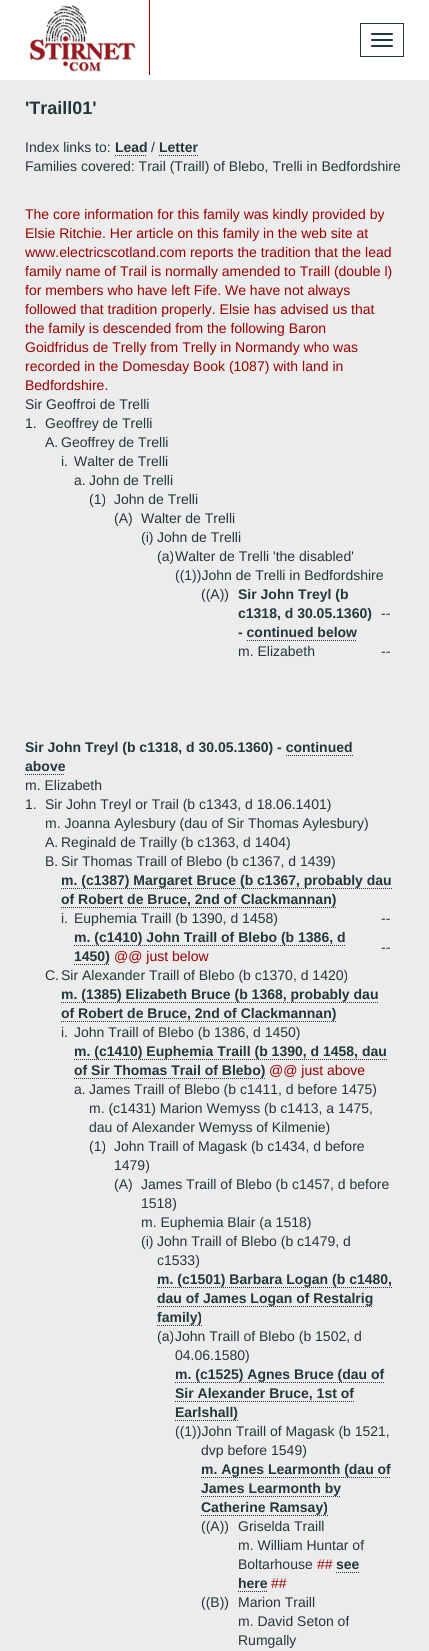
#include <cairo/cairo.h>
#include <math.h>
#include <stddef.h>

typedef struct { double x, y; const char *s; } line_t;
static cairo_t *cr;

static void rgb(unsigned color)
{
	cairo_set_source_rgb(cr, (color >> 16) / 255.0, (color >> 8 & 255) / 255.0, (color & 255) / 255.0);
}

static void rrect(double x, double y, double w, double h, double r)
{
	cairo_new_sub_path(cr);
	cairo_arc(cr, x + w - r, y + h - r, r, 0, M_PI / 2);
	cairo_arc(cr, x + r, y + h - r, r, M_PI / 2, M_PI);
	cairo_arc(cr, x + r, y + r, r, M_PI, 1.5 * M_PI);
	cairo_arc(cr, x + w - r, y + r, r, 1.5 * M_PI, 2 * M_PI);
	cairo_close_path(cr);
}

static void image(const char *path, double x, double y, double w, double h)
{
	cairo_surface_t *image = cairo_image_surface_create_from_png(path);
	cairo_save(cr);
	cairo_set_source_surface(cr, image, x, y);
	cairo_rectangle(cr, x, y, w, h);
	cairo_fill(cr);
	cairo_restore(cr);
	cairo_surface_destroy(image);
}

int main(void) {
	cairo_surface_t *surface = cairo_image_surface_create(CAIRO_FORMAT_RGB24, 429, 1651);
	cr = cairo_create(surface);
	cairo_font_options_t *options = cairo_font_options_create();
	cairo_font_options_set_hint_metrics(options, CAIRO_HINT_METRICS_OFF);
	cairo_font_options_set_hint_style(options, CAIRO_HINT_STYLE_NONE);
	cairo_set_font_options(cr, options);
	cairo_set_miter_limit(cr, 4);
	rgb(0xececec);
	cairo_paint(cr);
	rgb(0xffffff);
	cairo_rectangle(cr, 0, 0, 429, 80);
	cairo_fill(cr);
	rgb(0x990000);
	cairo_rectangle(cr, 149, 0, 1, 75);
	cairo_fill(cr);
	image("img/1.png", 30, 5, 106, 67);
	cairo_rectangle(cr, 360.5, 23.5, 43, 33);
	rgb(0x23363b);
	cairo_set_line_width(cr, 1);
	cairo_stroke(cr);
	rrect(371, 33, 22, 2, 1);
	cairo_fill(cr);
	rrect(371, 39, 22, 2, 1);
	cairo_fill(cr);
	rrect(371, 45, 22, 2, 1);
	cairo_fill(cr);
	cairo_new_path(cr);
	cairo_move_to(cr, 115, 155.5);
	cairo_line_to(cr, 147, 155.5);
	cairo_set_dash(cr, (double[]){1, 1}, 2, 0);
	cairo_stroke(cr);
	cairo_new_path(cr);
	cairo_move_to(cr, 159, 155.5);
	cairo_line_to(cr, 198, 155.5);
	cairo_stroke(cr);
	cairo_new_path(cr);
	cairo_move_to(cr, 247, 640.5);
	cairo_line_to(cr, 357, 640.5);
	cairo_stroke(cr);
	cairo_new_path(cr);
	cairo_move_to(cr, 286, 755.5);
	cairo_line_to(cr, 353, 755.5);
	cairo_stroke(cr);
	cairo_new_path(cr);
	cairo_move_to(cr, 25, 774.5);
	cairo_line_to(cr, 65, 774.5);
	cairo_stroke(cr);
	cairo_new_path(cr);
	cairo_move_to(cr, 61, 888.5);
	cairo_line_to(cr, 392, 888.5);
	cairo_stroke(cr);
	cairo_new_path(cr);
	cairo_move_to(cr, 61, 907.5);
	cairo_line_to(cr, 337, 907.5);
	cairo_stroke(cr);
	cairo_new_path(cr);
	cairo_move_to(cr, 74, 945.5);
	cairo_line_to(cr, 346, 945.5);
	cairo_stroke(cr);
	cairo_new_path(cr);
	cairo_move_to(cr, 74, 964.5);
	cairo_line_to(cr, 110, 964.5);
	cairo_stroke(cr);
	cairo_new_path(cr);
	cairo_move_to(cr, 61, 1002.5);
	cairo_line_to(cr, 379, 1002.5);
	cairo_stroke(cr);
	cairo_new_path(cr);
	cairo_move_to(cr, 61, 1021.5);
	cairo_line_to(cr, 337, 1021.5);
	cairo_stroke(cr);
	cairo_new_path(cr);
	cairo_move_to(cr, 74, 1059.5);
	cairo_line_to(cr, 387, 1059.5);
	cairo_stroke(cr);
	cairo_new_path(cr);
	cairo_move_to(cr, 74, 1078.5);
	cairo_line_to(cr, 265, 1078.5);
	cairo_stroke(cr);
	cairo_new_path(cr);
	cairo_move_to(cr, 157, 1287.5);
	cairo_line_to(cr, 392, 1287.5);
	cairo_stroke(cr);
	cairo_new_path(cr);
	cairo_move_to(cr, 157, 1306.5);
	cairo_line_to(cr, 373, 1306.5);
	cairo_stroke(cr);
	cairo_new_path(cr);
	cairo_move_to(cr, 157, 1325.5);
	cairo_line_to(cr, 202, 1325.5);
	cairo_stroke(cr);
	cairo_new_path(cr);
	cairo_move_to(cr, 175, 1382.5);
	cairo_line_to(cr, 384, 1382.5);
	cairo_stroke(cr);
	cairo_new_path(cr);
	cairo_move_to(cr, 175, 1401.5);
	cairo_line_to(cr, 354, 1401.5);
	cairo_stroke(cr);
	cairo_new_path(cr);
	cairo_move_to(cr, 175, 1420.5);
	cairo_line_to(cr, 238, 1420.5);
	cairo_stroke(cr);
	cairo_new_path(cr);
	cairo_move_to(cr, 201, 1477.5);
	cairo_line_to(cr, 391, 1477.5);
	cairo_stroke(cr);
	cairo_new_path(cr);
	cairo_move_to(cr, 201, 1496.5);
	cairo_line_to(cr, 341, 1496.5);
	cairo_stroke(cr);
	cairo_new_path(cr);
	cairo_move_to(cr, 201, 1515.5);
	cairo_line_to(cr, 328, 1515.5);
	cairo_stroke(cr);
	cairo_new_path(cr);
	cairo_move_to(cr, 336, 1572.5);
	cairo_line_to(cr, 359, 1572.5);
	cairo_stroke(cr);
	cairo_new_path(cr);
	cairo_move_to(cr, 238, 1591.5);
	cairo_line_to(cr, 268, 1591.5);
	cairo_stroke(cr);
	cairo_select_font_face(cr, "Liberation Sans", CAIRO_FONT_SLANT_NORMAL, CAIRO_FONT_WEIGHT_BOLD);
	cairo_set_font_size(cr, 18);
	cairo_move_to(cr, 25, 114);
	cairo_show_text(cr, "'Traill01'");
	cairo_select_font_face(cr, "Liberation Sans", CAIRO_FONT_SLANT_NORMAL, CAIRO_FONT_WEIGHT_NORMAL);
	cairo_set_font_size(cr, 14);
	cairo_move_to(cr, 25, 152);
	cairo_show_text(cr, "Index links to:");
	cairo_select_font_face(cr, "Liberation Sans", CAIRO_FONT_SLANT_NORMAL, CAIRO_FONT_WEIGHT_BOLD);
	cairo_move_to(cr, 115, 152);
	cairo_show_text(cr, "Lead");
	cairo_select_font_face(cr, "Liberation Sans", CAIRO_FONT_SLANT_NORMAL, CAIRO_FONT_WEIGHT_NORMAL);
	cairo_move_to(cr, 151, 152);
	cairo_show_text(cr, "/");
	cairo_select_font_face(cr, "Liberation Sans", CAIRO_FONT_SLANT_NORMAL, CAIRO_FONT_WEIGHT_BOLD);
	cairo_move_to(cr, 159, 152);
	cairo_show_text(cr, "Letter");
	cairo_select_font_face(cr, "Liberation Sans", CAIRO_FONT_SLANT_NORMAL, CAIRO_FONT_WEIGHT_NORMAL);
	cairo_move_to(cr, 25, 171);
	cairo_show_text(cr, "Families covered: Trail (Traill) of Blebo, Trelli in Bedfordshire");
	rgb(0x990000);
	{
		static const line_t items[] = {
			{25, 219, "The core information for this family was kindly provided by"},
			{25, 238, "Elsie Ritchie. Her article on this family in the web site at"},
			{25, 257, "www.electricscotland.com reports the tradition that the lead"},
			{25, 276, "family name of Trail is normally amended to Traill (double l)"},
			{25, 295, "for members who have left Fife. We have not always"},
			{25, 314, "followed that tradition properly. Elsie has advised us that"},
			{25, 333, "the family is descended from the following Baron"},
			{25, 352, "Goidfridus de Trelly from Trelly in Normandy who was"},
			{25, 371, "recorded in the Domesday Book (1087) with land in"},
			{25, 390, "Bedfordshire."},
		};
		for (size_t i = 0; i < sizeof items / sizeof *items; i++) {
			cairo_move_to(cr, items[i].x, items[i].y);
			cairo_show_text(cr, items[i].s);
		}
	}
	rgb(0x23363b);
	{
		static const line_t items[] = {
			{25, 409, "Sir Geoffroi de Trelli"},
			{25, 428, "1."},
			{45, 428, "Geoffrey de Trelli"},
			{45, 447, "A."},
			{61, 447, "Geoffrey de Trelli"},
			{61, 466, "i."},
			{74, 466, "Walter de Trelli"},
			{74, 485, "a."},
			{89, 485, "John de Trelli"},
			{89, 504, "(1)"},
			{114, 504, "John de Trelli"},
			{114, 523, "(A)"},
			{141, 523, "Walter de Trelli"},
			{141, 542, "(i)"},
			{157, 542, "John de Trelli"},
			{157, 561, "(a)"},
			{175, 561, "Walter de Trelli 'the disabled'"},
			{175, 580, "((1))John de Trelli in Bedfordshire"},
			{201, 599, "((A))"},
		};
		for (size_t i = 0; i < sizeof items / sizeof *items; i++) {
			cairo_move_to(cr, items[i].x, items[i].y);
			cairo_show_text(cr, items[i].s);
		}
	}
	cairo_select_font_face(cr, "Liberation Sans", CAIRO_FONT_SLANT_NORMAL, CAIRO_FONT_WEIGHT_BOLD);
	{
		static const line_t items[] = {
			{238, 599, "Sir John Treyl (b"},
			{238, 618, "c1318, d 30.05.1360)"},
			{238, 637, "- continued below"},
		};
		for (size_t i = 0; i < sizeof items / sizeof *items; i++) {
			cairo_move_to(cr, items[i].x, items[i].y);
			cairo_show_text(cr, items[i].s);
		}
	}
	cairo_select_font_face(cr, "Liberation Sans", CAIRO_FONT_SLANT_NORMAL, CAIRO_FONT_WEIGHT_NORMAL);
	{
		static const line_t items[] = {
			{381, 618, "--"},
			{238, 656, "m. Elizabeth"},
			{381, 656, "--"},
		};
		for (size_t i = 0; i < sizeof items / sizeof *items; i++) {
			cairo_move_to(cr, items[i].x, items[i].y);
			cairo_show_text(cr, items[i].s);
		}
	}
	cairo_select_font_face(cr, "Liberation Sans", CAIRO_FONT_SLANT_NORMAL, CAIRO_FONT_WEIGHT_BOLD);
	cairo_move_to(cr, 25, 752);
	cairo_show_text(cr, "Sir John Treyl (b c1318, d 30.05.1360) - continued");
	cairo_move_to(cr, 25, 771);
	cairo_show_text(cr, "above");
	cairo_select_font_face(cr, "Liberation Sans", CAIRO_FONT_SLANT_NORMAL, CAIRO_FONT_WEIGHT_NORMAL);
	{
		static const line_t items[] = {
			{25, 790, "m. Elizabeth"},
			{25, 809, "1."},
			{45, 809, "Sir John Treyl or Trail (b c1343, d 18.06.1401)"},
			{45, 828, "m. Joanna Aylesbury (dau of Sir Thomas Aylesbury)"},
			{45, 847, "A."},
			{61, 847, "Reginald de Trailly (b c1363, d 1404)"},
			{45, 866, "B."},
			{61, 866, "Sir Thomas Traill of Blebo (b c1367, d 1439)"},
		};
		for (size_t i = 0; i < sizeof items / sizeof *items; i++) {
			cairo_move_to(cr, items[i].x, items[i].y);
			cairo_show_text(cr, items[i].s);
		}
	}
	cairo_select_font_face(cr, "Liberation Sans", CAIRO_FONT_SLANT_NORMAL, CAIRO_FONT_WEIGHT_BOLD);
	cairo_move_to(cr, 61, 885);
	cairo_show_text(cr, "m. (c1387) Margaret Bruce (b c1367, probably dau");
	cairo_move_to(cr, 61, 904);
	cairo_show_text(cr, "of Robert de Bruce, 2nd of Clackmannan)");
	cairo_select_font_face(cr, "Liberation Sans", CAIRO_FONT_SLANT_NORMAL, CAIRO_FONT_WEIGHT_NORMAL);
	{
		static const line_t items[] = {
			{61, 923, "i."},
			{74, 923, "Euphemia Traill (b 1390, d 1458)"},
			{381, 923, "--"},
		};
		for (size_t i = 0; i < sizeof items / sizeof *items; i++) {
			cairo_move_to(cr, items[i].x, items[i].y);
			cairo_show_text(cr, items[i].s);
		}
	}
	cairo_select_font_face(cr, "Liberation Sans", CAIRO_FONT_SLANT_NORMAL, CAIRO_FONT_WEIGHT_BOLD);
	cairo_move_to(cr, 74, 942);
	cairo_show_text(cr, "m. (c1410) John Traill of Blebo (b 1386, d");
	cairo_move_to(cr, 74, 961);
	cairo_show_text(cr, "1450)");
	cairo_select_font_face(cr, "Liberation Sans", CAIRO_FONT_SLANT_NORMAL, CAIRO_FONT_WEIGHT_NORMAL);
	rgb(0x990000);
	cairo_move_to(cr, 114, 961);
	cairo_show_text(cr, "@@ just below");
	rgb(0x23363b);
	{
		static const line_t items[] = {
			{381, 952, "--"},
			{45, 980, "C."},
			{61, 980, "Sir Alexander Traill of Blebo (b c1370, d 1420)"},
		};
		for (size_t i = 0; i < sizeof items / sizeof *items; i++) {
			cairo_move_to(cr, items[i].x, items[i].y);
			cairo_show_text(cr, items[i].s);
		}
	}
	cairo_select_font_face(cr, "Liberation Sans", CAIRO_FONT_SLANT_NORMAL, CAIRO_FONT_WEIGHT_BOLD);
	cairo_move_to(cr, 61, 999);
	cairo_show_text(cr, "m. (1385) Elizabeth Bruce (b 1368, probably dau");
	cairo_move_to(cr, 61, 1018);
	cairo_show_text(cr, "of Robert de Bruce, 2nd of Clackmannan)");
	cairo_select_font_face(cr, "Liberation Sans", CAIRO_FONT_SLANT_NORMAL, CAIRO_FONT_WEIGHT_NORMAL);
	cairo_move_to(cr, 61, 1037);
	cairo_show_text(cr, "i.");
	cairo_move_to(cr, 74, 1037);
	cairo_show_text(cr, "John Traill of Blebo (b 1386, d 1450)");
	cairo_select_font_face(cr, "Liberation Sans", CAIRO_FONT_SLANT_NORMAL, CAIRO_FONT_WEIGHT_BOLD);
	cairo_move_to(cr, 74, 1056);
	cairo_show_text(cr, "m. (c1410) Euphemia Traill (b 1390, d 1458, dau");
	cairo_move_to(cr, 74, 1075);
	cairo_show_text(cr, "of Sir Thomas Trail of Blebo)");
	cairo_select_font_face(cr, "Liberation Sans", CAIRO_FONT_SLANT_NORMAL, CAIRO_FONT_WEIGHT_NORMAL);
	rgb(0x990000);
	cairo_move_to(cr, 269, 1075);
	cairo_show_text(cr, "@@ just above");
	rgb(0x23363b);
	{
		static const line_t items[] = {
			{74, 1094, "a."},
			{89, 1094, "James Traill of Blebo (b c1411, d before 1475)"},
			{89, 1113, "m. (c1431) Marion Wemyss (b c1413, a 1475,"},
			{89, 1132, "dau of Alexander Wemyss of Kilmenie)"},
			{89, 1151, "(1)"},
			{114, 1151, "John Traill of Magask (b c1434, d before"},
			{114, 1170, "1479)"},
			{114, 1189, "(A)"},
			{141, 1189, "James Traill of Blebo (b c1457, d before"},
			{141, 1208, "1518)"},
			{141, 1227, "m. Euphemia Blair (a 1518)"},
			{141, 1246, "(i)"},
			{157, 1246, "John Traill of Blebo (b c1479, d"},
			{157, 1265, "c1533)"},
		};
		for (size_t i = 0; i < sizeof items / sizeof *items; i++) {
			cairo_move_to(cr, items[i].x, items[i].y);
			cairo_show_text(cr, items[i].s);
		}
	}
	cairo_select_font_face(cr, "Liberation Sans", CAIRO_FONT_SLANT_NORMAL, CAIRO_FONT_WEIGHT_BOLD);
	{
		static const line_t items[] = {
			{157, 1284, "m. (c1501) Barbara Logan (b c1480,"},
			{157, 1303, "dau of James Logan of Restalrig"},
			{157, 1322, "family)"},
		};
		for (size_t i = 0; i < sizeof items / sizeof *items; i++) {
			cairo_move_to(cr, items[i].x, items[i].y);
			cairo_show_text(cr, items[i].s);
		}
	}
	cairo_select_font_face(cr, "Liberation Sans", CAIRO_FONT_SLANT_NORMAL, CAIRO_FONT_WEIGHT_NORMAL);
	{
		static const line_t items[] = {
			{157, 1341, "(a)"},
			{175, 1341, "John Traill of Blebo (b 1502, d"},
			{175, 1360, "04.06.1580)"},
		};
		for (size_t i = 0; i < sizeof items / sizeof *items; i++) {
			cairo_move_to(cr, items[i].x, items[i].y);
			cairo_show_text(cr, items[i].s);
		}
	}
	cairo_select_font_face(cr, "Liberation Sans", CAIRO_FONT_SLANT_NORMAL, CAIRO_FONT_WEIGHT_BOLD);
	{
		static const line_t items[] = {
			{175, 1379, "m. (c1525) Agnes Bruce (dau of"},
			{175, 1398, "Sir Alexander Bruce, 1st of"},
			{175, 1417, "Earlshall)"},
		};
		for (size_t i = 0; i < sizeof items / sizeof *items; i++) {
			cairo_move_to(cr, items[i].x, items[i].y);
			cairo_show_text(cr, items[i].s);
		}
	}
	cairo_select_font_face(cr, "Liberation Sans", CAIRO_FONT_SLANT_NORMAL, CAIRO_FONT_WEIGHT_NORMAL);
	cairo_move_to(cr, 175, 1436);
	cairo_show_text(cr, "((1))John Traill of Magask (b 1521,");
	cairo_move_to(cr, 201, 1455);
	cairo_show_text(cr, "dvp before 1549)");
	cairo_select_font_face(cr, "Liberation Sans", CAIRO_FONT_SLANT_NORMAL, CAIRO_FONT_WEIGHT_BOLD);
	{
		static const line_t items[] = {
			{201, 1474, "m. Agnes Learmonth (dau of"},
			{201, 1493, "James Learmonth by"},
			{201, 1512, "Catherine Ramsay)"},
		};
		for (size_t i = 0; i < sizeof items / sizeof *items; i++) {
			cairo_move_to(cr, items[i].x, items[i].y);
			cairo_show_text(cr, items[i].s);
		}
	}
	cairo_select_font_face(cr, "Liberation Sans", CAIRO_FONT_SLANT_NORMAL, CAIRO_FONT_WEIGHT_NORMAL);
	{
		static const line_t items[] = {
			{201, 1531, "((A))"},
			{238, 1531, "Griselda Traill"},
			{238, 1550, "m. William Huntar of"},
			{238, 1569, "Boltarhouse"},
		};
		for (size_t i = 0; i < sizeof items / sizeof *items; i++) {
			cairo_move_to(cr, items[i].x, items[i].y);
			cairo_show_text(cr, items[i].s);
		}
	}
	rgb(0x990000);
	cairo_move_to(cr, 317, 1569);
	cairo_show_text(cr, "##");
	cairo_select_font_face(cr, "Liberation Sans", CAIRO_FONT_SLANT_NORMAL, CAIRO_FONT_WEIGHT_BOLD);
	rgb(0x23363b);
	cairo_move_to(cr, 336, 1569);
	cairo_show_text(cr, "see");
	cairo_move_to(cr, 238, 1588);
	cairo_show_text(cr, "here");
	cairo_select_font_face(cr, "Liberation Sans", CAIRO_FONT_SLANT_NORMAL, CAIRO_FONT_WEIGHT_NORMAL);
	rgb(0x990000);
	cairo_move_to(cr, 271, 1588);
	cairo_show_text(cr, "##");
	rgb(0x23363b);
	{
		static const line_t items[] = {
			{201, 1607, "((B))"},
			{238, 1607, "Marion Traill"},
			{238, 1626, "m. David Seton of"},
			{238, 1645, "Rumgally"},
		};
		for (size_t i = 0; i < sizeof items / sizeof *items; i++) {
			cairo_move_to(cr, items[i].x, items[i].y);
			cairo_show_text(cr, items[i].s);
		}
	}
	cairo_surface_write_to_png(surface, "page.png");
	cairo_font_options_destroy(options);
	cairo_destroy(cr);
	cairo_surface_destroy(surface);
	return 0;
}
